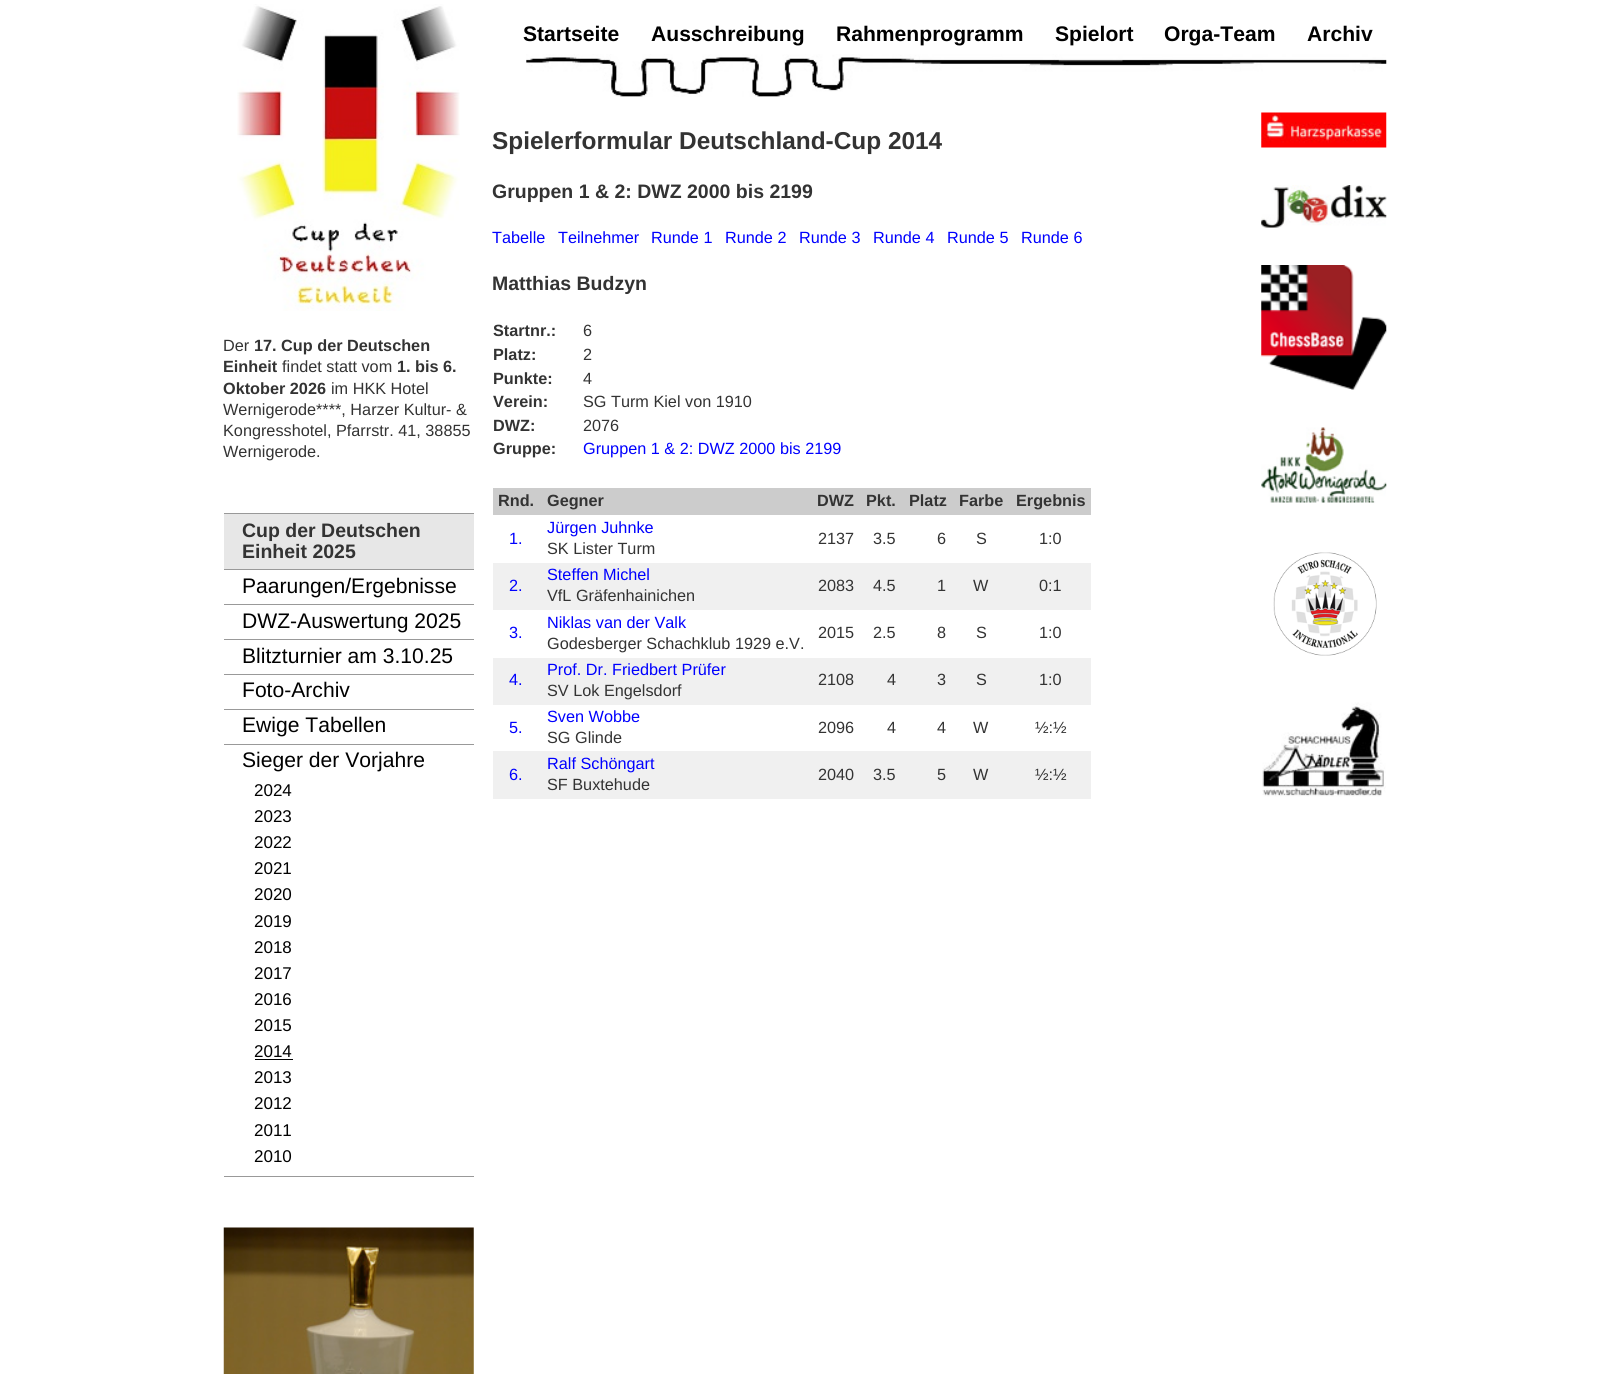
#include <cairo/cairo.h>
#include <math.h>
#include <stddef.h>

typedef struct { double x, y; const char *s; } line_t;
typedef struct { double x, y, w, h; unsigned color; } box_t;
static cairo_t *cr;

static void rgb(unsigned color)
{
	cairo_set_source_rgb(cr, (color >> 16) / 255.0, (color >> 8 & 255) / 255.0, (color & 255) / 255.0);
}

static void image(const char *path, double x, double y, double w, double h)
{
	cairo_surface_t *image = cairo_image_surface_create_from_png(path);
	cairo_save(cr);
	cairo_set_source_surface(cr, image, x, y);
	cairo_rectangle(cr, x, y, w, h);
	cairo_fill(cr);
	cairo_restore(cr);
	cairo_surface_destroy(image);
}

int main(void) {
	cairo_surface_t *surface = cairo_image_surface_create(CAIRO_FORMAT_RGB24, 1608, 1374);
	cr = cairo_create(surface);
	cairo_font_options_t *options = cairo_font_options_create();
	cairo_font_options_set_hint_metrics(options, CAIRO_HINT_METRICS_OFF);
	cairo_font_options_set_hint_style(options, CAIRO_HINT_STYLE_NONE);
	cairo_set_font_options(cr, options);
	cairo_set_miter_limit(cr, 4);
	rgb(0xffffff);
	cairo_paint(cr);
	image("img/1.png", 237, 4, 223, 307);
	{
		static const box_t items[] = {
			{224, 514, 250, 55, 0xe7e7e7},
			{224, 513, 250, 1, 0x999999},
			{224, 569, 250, 1, 0x999999},
			{224, 604, 250, 1, 0x999999},
			{224, 639, 250, 1, 0x999999},
			{224, 674, 250, 1, 0x999999},
			{224, 709, 250, 1, 0x999999},
			{224, 744, 250, 1, 0x999999},
			{224, 1176, 250, 1, 0x999999},
			{255, 1059, 38, 1, 0x000000},
		};
		for (size_t i = 0; i < sizeof items / sizeof *items; i++) {
			rgb(items[i].color);
			cairo_rectangle(cr, items[i].x, items[i].y, items[i].w, items[i].h);
			cairo_fill(cr);
		}
	}
	image("img/2.png", 223, 1227, 251, 147);
	image("img/3.png", 526, 54, 861, 43);
	{
		static const box_t items[] = {
			{493, 488, 598, 27, 0xcccccc},
			{493, 563, 598, 47, 0xf0f0f0},
			{493, 658, 598, 47, 0xf0f0f0},
			{493, 751, 598, 48, 0xf0f0f0},
		};
		for (size_t i = 0; i < sizeof items / sizeof *items; i++) {
			rgb(items[i].color);
			cairo_rectangle(cr, items[i].x, items[i].y, items[i].w, items[i].h);
			cairo_fill(cr);
		}
	}
	image("img/4.png", 1261, 112, 126, 36);
	image("img/5.png", 1261, 185, 126, 43);
	image("img/6.png", 1261, 265, 126, 125);
	image("img/7.png", 1261, 427, 126, 76);
	image("img/8.png", 1273, 552, 104, 104);
	image("img/9.png", 1262, 702, 124, 95);
	cairo_select_font_face(cr, "Liberation Sans", CAIRO_FONT_SLANT_NORMAL, CAIRO_FONT_WEIGHT_NORMAL);
	cairo_set_font_size(cr, 16.25);
	rgb(0x333333);
	cairo_move_to(cr, 223, 351);
	cairo_show_text(cr, "Der");
	cairo_select_font_face(cr, "Liberation Sans", CAIRO_FONT_SLANT_NORMAL, CAIRO_FONT_WEIGHT_BOLD);
	cairo_move_to(cr, 254, 351);
	cairo_show_text(cr, "17. Cup der Deutschen");
	cairo_move_to(cr, 223, 372);
	cairo_show_text(cr, "Einheit");
	cairo_select_font_face(cr, "Liberation Sans", CAIRO_FONT_SLANT_NORMAL, CAIRO_FONT_WEIGHT_NORMAL);
	cairo_move_to(cr, 282, 372);
	cairo_show_text(cr, "findet statt vom");
	cairo_select_font_face(cr, "Liberation Sans", CAIRO_FONT_SLANT_NORMAL, CAIRO_FONT_WEIGHT_BOLD);
	cairo_move_to(cr, 397, 372);
	cairo_show_text(cr, "1. bis 6.");
	cairo_move_to(cr, 223, 394);
	cairo_show_text(cr, "Oktober 2026");
	cairo_select_font_face(cr, "Liberation Sans", CAIRO_FONT_SLANT_NORMAL, CAIRO_FONT_WEIGHT_NORMAL);
	{
		static const line_t items[] = {
			{331, 394, "im HKK Hotel"},
			{223, 415, "Wernigerode****, Harzer Kultur- &"},
			{223, 436, "Kongresshotel, Pfarrstr. 41, 38855"},
			{223, 457, "Wernigerode."},
		};
		for (size_t i = 0; i < sizeof items / sizeof *items; i++) {
			cairo_move_to(cr, items[i].x, items[i].y);
			cairo_show_text(cr, items[i].s);
		}
	}
	cairo_select_font_face(cr, "Liberation Sans", CAIRO_FONT_SLANT_NORMAL, CAIRO_FONT_WEIGHT_BOLD);
	cairo_set_font_size(cr, 19.5);
	cairo_move_to(cr, 242, 537);
	cairo_show_text(cr, "Cup der Deutschen");
	cairo_move_to(cr, 242, 558);
	cairo_show_text(cr, "Einheit 2025");
	cairo_select_font_face(cr, "Liberation Sans", CAIRO_FONT_SLANT_NORMAL, CAIRO_FONT_WEIGHT_NORMAL);
	cairo_set_font_size(cr, 21.1);
	rgb(0x000000);
	{
		static const line_t items[] = {
			{242, 593, "Paarungen/Ergebnisse"},
			{242, 628, "DWZ-Auswertung 2025"},
			{242, 663, "Blitzturnier am 3.10.25"},
			{242, 697, "Foto-Archiv"},
			{242, 732, "Ewige Tabellen"},
			{242, 767, "Sieger der Vorjahre"},
		};
		for (size_t i = 0; i < sizeof items / sizeof *items; i++) {
			cairo_move_to(cr, items[i].x, items[i].y);
			cairo_show_text(cr, items[i].s);
		}
	}
	cairo_set_font_size(cr, 17);
	{
		static const line_t items[] = {
			{254, 796, "2024"},
			{254, 822, "2023"},
			{254, 848, "2022"},
			{254, 874, "2021"},
			{254, 900, "2020"},
			{254, 927, "2019"},
			{254, 953, "2018"},
			{254, 979, "2017"},
			{254, 1005, "2016"},
			{254, 1031, "2015"},
			{254, 1057, "2014"},
			{254, 1083, "2013"},
			{254, 1109, "2012"},
			{254, 1136, "2011"},
			{254, 1162, "2010"},
		};
		for (size_t i = 0; i < sizeof items / sizeof *items; i++) {
			cairo_move_to(cr, items[i].x, items[i].y);
			cairo_show_text(cr, items[i].s);
		}
	}
	cairo_select_font_face(cr, "Liberation Sans", CAIRO_FONT_SLANT_NORMAL, CAIRO_FONT_WEIGHT_BOLD);
	cairo_set_font_size(cr, 21.1);
	{
		static const line_t items[] = {
			{523, 41, "Startseite"},
			{651, 41, "Ausschreibung"},
			{836, 41, "Rahmenprogramm"},
			{1055, 41, "Spielort"},
			{1164, 41, "Orga-Team"},
			{1307, 41, "Archiv"},
		};
		for (size_t i = 0; i < sizeof items / sizeof *items; i++) {
			cairo_move_to(cr, items[i].x, items[i].y);
			cairo_show_text(cr, items[i].s);
		}
	}
	cairo_set_font_size(cr, 24.4);
	rgb(0x333333);
	cairo_move_to(cr, 492, 149);
	cairo_show_text(cr, "Spielerformular Deutschland-Cup 2014");
	cairo_set_font_size(cr, 19.5);
	cairo_move_to(cr, 492, 198);
	cairo_show_text(cr, "Gruppen 1 & 2: DWZ 2000 bis 2199");
	cairo_select_font_face(cr, "Liberation Sans", CAIRO_FONT_SLANT_NORMAL, CAIRO_FONT_WEIGHT_NORMAL);
	cairo_set_font_size(cr, 16.25);
	rgb(0x0000ff);
	{
		static const line_t items[] = {
			{492, 243, "Tabelle"},
			{558, 243, "Teilnehmer"},
			{651, 243, "Runde 1"},
			{725, 243, "Runde 2"},
			{799, 243, "Runde 3"},
			{873, 243, "Runde 4"},
			{947, 243, "Runde 5"},
			{1021, 243, "Runde 6"},
		};
		for (size_t i = 0; i < sizeof items / sizeof *items; i++) {
			cairo_move_to(cr, items[i].x, items[i].y);
			cairo_show_text(cr, items[i].s);
		}
	}
	cairo_select_font_face(cr, "Liberation Sans", CAIRO_FONT_SLANT_NORMAL, CAIRO_FONT_WEIGHT_BOLD);
	cairo_set_font_size(cr, 19.5);
	rgb(0x333333);
	cairo_move_to(cr, 492, 290);
	cairo_show_text(cr, "Matthias Budzyn");
	cairo_set_font_size(cr, 16.25);
	cairo_move_to(cr, 493, 336);
	cairo_show_text(cr, "Startnr.:");
	cairo_select_font_face(cr, "Liberation Sans", CAIRO_FONT_SLANT_NORMAL, CAIRO_FONT_WEIGHT_NORMAL);
	cairo_move_to(cr, 583, 336);
	cairo_show_text(cr, "6");
	cairo_select_font_face(cr, "Liberation Sans", CAIRO_FONT_SLANT_NORMAL, CAIRO_FONT_WEIGHT_BOLD);
	cairo_move_to(cr, 493, 360);
	cairo_show_text(cr, "Platz:");
	cairo_select_font_face(cr, "Liberation Sans", CAIRO_FONT_SLANT_NORMAL, CAIRO_FONT_WEIGHT_NORMAL);
	cairo_move_to(cr, 583, 360);
	cairo_show_text(cr, "2");
	cairo_select_font_face(cr, "Liberation Sans", CAIRO_FONT_SLANT_NORMAL, CAIRO_FONT_WEIGHT_BOLD);
	cairo_move_to(cr, 493, 384);
	cairo_show_text(cr, "Punkte:");
	cairo_select_font_face(cr, "Liberation Sans", CAIRO_FONT_SLANT_NORMAL, CAIRO_FONT_WEIGHT_NORMAL);
	cairo_move_to(cr, 583, 384);
	cairo_show_text(cr, "4");
	cairo_select_font_face(cr, "Liberation Sans", CAIRO_FONT_SLANT_NORMAL, CAIRO_FONT_WEIGHT_BOLD);
	cairo_move_to(cr, 493, 407);
	cairo_show_text(cr, "Verein:");
	cairo_select_font_face(cr, "Liberation Sans", CAIRO_FONT_SLANT_NORMAL, CAIRO_FONT_WEIGHT_NORMAL);
	cairo_move_to(cr, 583, 407);
	cairo_show_text(cr, "SG Turm Kiel von 1910");
	cairo_select_font_face(cr, "Liberation Sans", CAIRO_FONT_SLANT_NORMAL, CAIRO_FONT_WEIGHT_BOLD);
	cairo_move_to(cr, 493, 431);
	cairo_show_text(cr, "DWZ:");
	cairo_select_font_face(cr, "Liberation Sans", CAIRO_FONT_SLANT_NORMAL, CAIRO_FONT_WEIGHT_NORMAL);
	cairo_move_to(cr, 583, 431);
	cairo_show_text(cr, "2076");
	cairo_select_font_face(cr, "Liberation Sans", CAIRO_FONT_SLANT_NORMAL, CAIRO_FONT_WEIGHT_BOLD);
	cairo_move_to(cr, 493, 454);
	cairo_show_text(cr, "Gruppe:");
	cairo_select_font_face(cr, "Liberation Sans", CAIRO_FONT_SLANT_NORMAL, CAIRO_FONT_WEIGHT_NORMAL);
	rgb(0x0000ff);
	cairo_move_to(cr, 583, 454);
	cairo_show_text(cr, "Gruppen 1 & 2: DWZ 2000 bis 2199");
	cairo_select_font_face(cr, "Liberation Sans", CAIRO_FONT_SLANT_NORMAL, CAIRO_FONT_WEIGHT_BOLD);
	rgb(0x333333);
	{
		static const line_t items[] = {
			{498, 506, "Rnd."},
			{547, 506, "Gegner"},
			{817, 506, "DWZ"},
			{866, 506, "Pkt."},
			{909, 506, "Platz"},
			{959, 506, "Farbe"},
			{1016, 506, "Ergebnis"},
		};
		for (size_t i = 0; i < sizeof items / sizeof *items; i++) {
			cairo_move_to(cr, items[i].x, items[i].y);
			cairo_show_text(cr, items[i].s);
		}
	}
	cairo_select_font_face(cr, "Liberation Sans", CAIRO_FONT_SLANT_NORMAL, CAIRO_FONT_WEIGHT_NORMAL);
	rgb(0x0000ff);
	cairo_move_to(cr, 509, 544);
	cairo_show_text(cr, "1.");
	cairo_move_to(cr, 547, 533);
	cairo_show_text(cr, "Jürgen Juhnke");
	rgb(0x333333);
	{
		static const line_t items[] = {
			{547, 554, "SK Lister Turm"},
			{818, 544, "2137"},
			{873, 544, "3.5"},
			{937, 544, "6"},
			{976, 544, "S"},
			{1039, 544, "1:0"},
		};
		for (size_t i = 0; i < sizeof items / sizeof *items; i++) {
			cairo_move_to(cr, items[i].x, items[i].y);
			cairo_show_text(cr, items[i].s);
		}
	}
	rgb(0x0000ff);
	cairo_move_to(cr, 509, 591);
	cairo_show_text(cr, "2.");
	cairo_move_to(cr, 547, 580);
	cairo_show_text(cr, "Steffen Michel");
	rgb(0x333333);
	{
		static const line_t items[] = {
			{547, 601, "VfL Gräfenhainichen"},
			{818, 591, "2083"},
			{873, 591, "4.5"},
			{937, 591, "1"},
			{973, 591, "W"},
			{1039, 591, "0:1"},
		};
		for (size_t i = 0; i < sizeof items / sizeof *items; i++) {
			cairo_move_to(cr, items[i].x, items[i].y);
			cairo_show_text(cr, items[i].s);
		}
	}
	rgb(0x0000ff);
	cairo_move_to(cr, 509, 638);
	cairo_show_text(cr, "3.");
	cairo_move_to(cr, 547, 628);
	cairo_show_text(cr, "Niklas van der Valk");
	rgb(0x333333);
	{
		static const line_t items[] = {
			{547, 649, "Godesberger Schachklub 1929 e.V."},
			{818, 638, "2015"},
			{873, 638, "2.5"},
			{937, 638, "8"},
			{976, 638, "S"},
			{1039, 638, "1:0"},
		};
		for (size_t i = 0; i < sizeof items / sizeof *items; i++) {
			cairo_move_to(cr, items[i].x, items[i].y);
			cairo_show_text(cr, items[i].s);
		}
	}
	rgb(0x0000ff);
	cairo_move_to(cr, 509, 685);
	cairo_show_text(cr, "4.");
	cairo_move_to(cr, 547, 675);
	cairo_show_text(cr, "Prof. Dr. Friedbert Prüfer");
	rgb(0x333333);
	{
		static const line_t items[] = {
			{547, 696, "SV Lok Engelsdorf"},
			{818, 685, "2108"},
			{887, 685, "4"},
			{937, 685, "3"},
			{976, 685, "S"},
			{1039, 685, "1:0"},
		};
		for (size_t i = 0; i < sizeof items / sizeof *items; i++) {
			cairo_move_to(cr, items[i].x, items[i].y);
			cairo_show_text(cr, items[i].s);
		}
	}
	rgb(0x0000ff);
	cairo_move_to(cr, 509, 733);
	cairo_show_text(cr, "5.");
	cairo_move_to(cr, 547, 722);
	cairo_show_text(cr, "Sven Wobbe");
	rgb(0x333333);
	{
		static const line_t items[] = {
			{547, 743, "SG Glinde"},
			{818, 733, "2096"},
			{887, 733, "4"},
			{937, 733, "4"},
			{973, 733, "W"},
			{1035, 733, "½:½"},
		};
		for (size_t i = 0; i < sizeof items / sizeof *items; i++) {
			cairo_move_to(cr, items[i].x, items[i].y);
			cairo_show_text(cr, items[i].s);
		}
	}
	rgb(0x0000ff);
	cairo_move_to(cr, 509, 780);
	cairo_show_text(cr, "6.");
	cairo_move_to(cr, 547, 769);
	cairo_show_text(cr, "Ralf Schöngart");
	rgb(0x333333);
	{
		static const line_t items[] = {
			{547, 790, "SF Buxtehude"},
			{818, 780, "2040"},
			{873, 780, "3.5"},
			{937, 780, "5"},
			{973, 780, "W"},
			{1035, 780, "½:½"},
		};
		for (size_t i = 0; i < sizeof items / sizeof *items; i++) {
			cairo_move_to(cr, items[i].x, items[i].y);
			cairo_show_text(cr, items[i].s);
		}
	}
	cairo_surface_write_to_png(surface, "page.png");
	cairo_font_options_destroy(options);
	cairo_destroy(cr);
	cairo_surface_destroy(surface);
	return 0;
}
